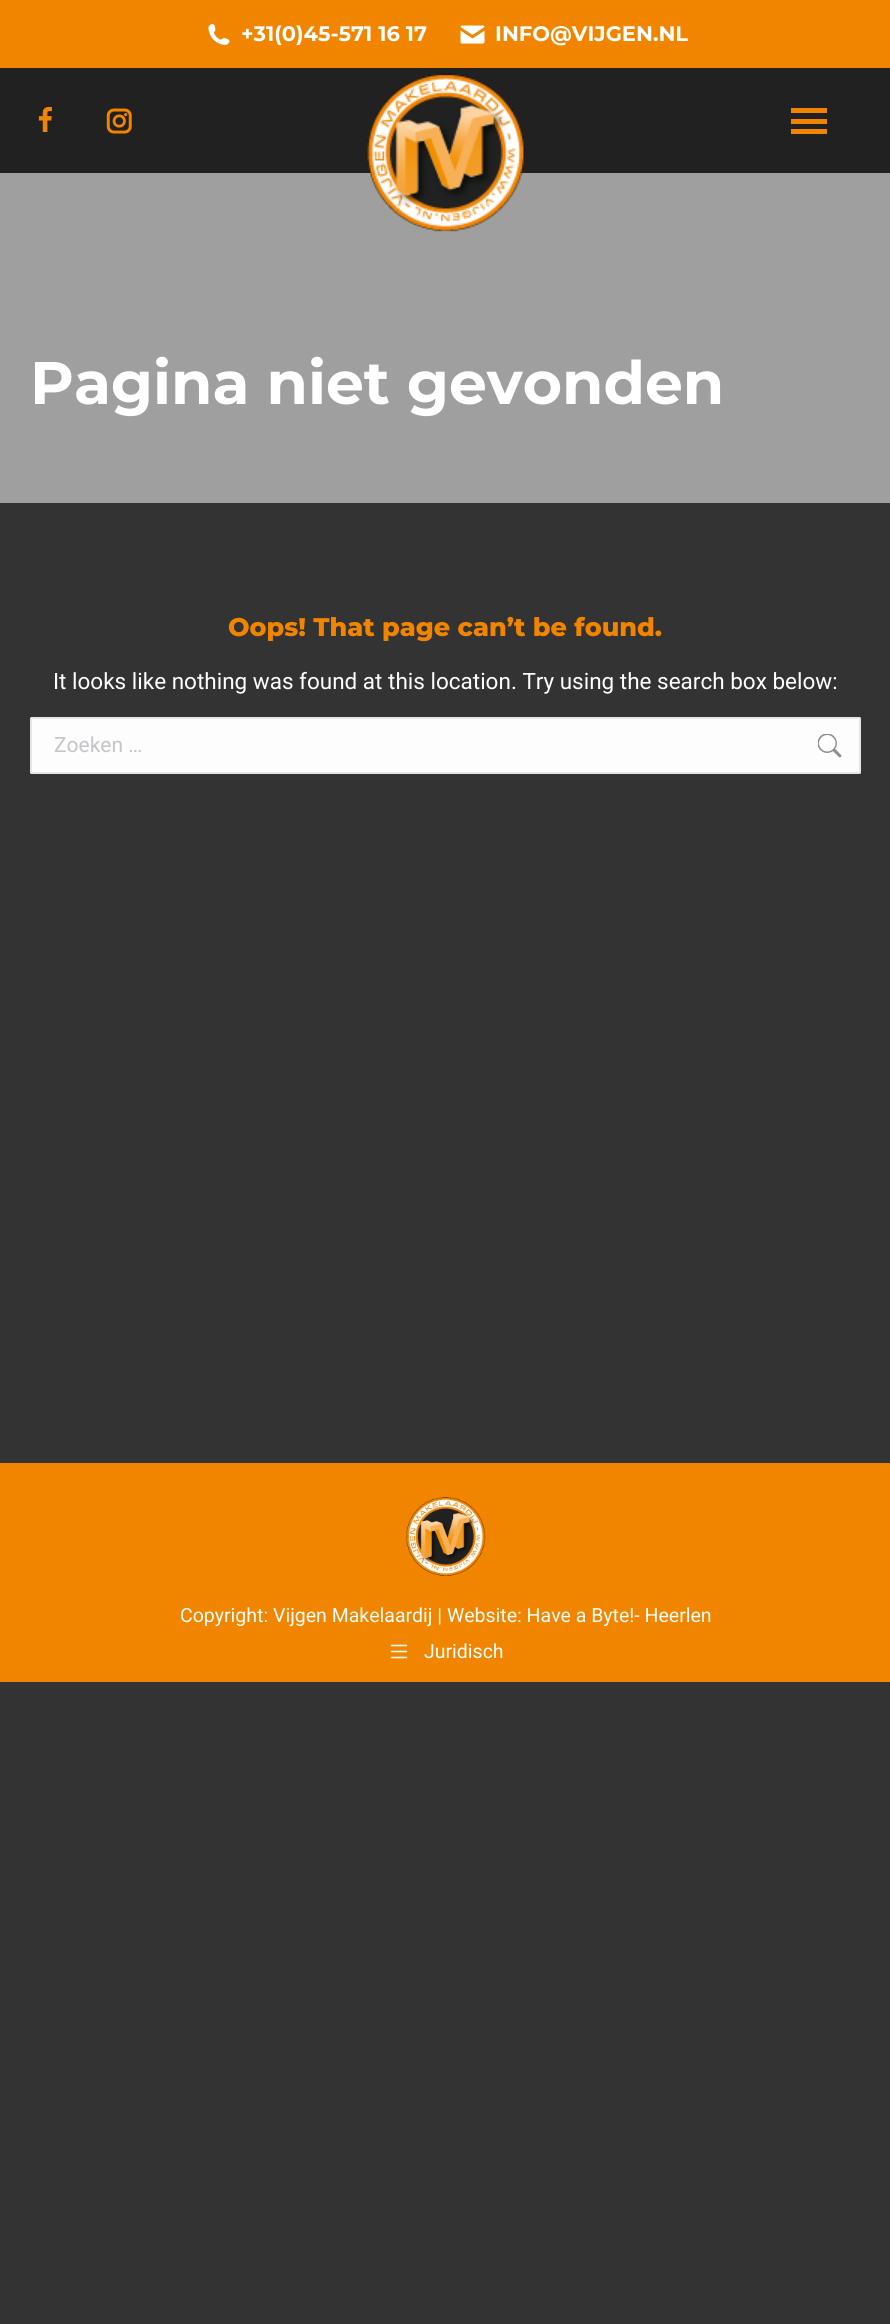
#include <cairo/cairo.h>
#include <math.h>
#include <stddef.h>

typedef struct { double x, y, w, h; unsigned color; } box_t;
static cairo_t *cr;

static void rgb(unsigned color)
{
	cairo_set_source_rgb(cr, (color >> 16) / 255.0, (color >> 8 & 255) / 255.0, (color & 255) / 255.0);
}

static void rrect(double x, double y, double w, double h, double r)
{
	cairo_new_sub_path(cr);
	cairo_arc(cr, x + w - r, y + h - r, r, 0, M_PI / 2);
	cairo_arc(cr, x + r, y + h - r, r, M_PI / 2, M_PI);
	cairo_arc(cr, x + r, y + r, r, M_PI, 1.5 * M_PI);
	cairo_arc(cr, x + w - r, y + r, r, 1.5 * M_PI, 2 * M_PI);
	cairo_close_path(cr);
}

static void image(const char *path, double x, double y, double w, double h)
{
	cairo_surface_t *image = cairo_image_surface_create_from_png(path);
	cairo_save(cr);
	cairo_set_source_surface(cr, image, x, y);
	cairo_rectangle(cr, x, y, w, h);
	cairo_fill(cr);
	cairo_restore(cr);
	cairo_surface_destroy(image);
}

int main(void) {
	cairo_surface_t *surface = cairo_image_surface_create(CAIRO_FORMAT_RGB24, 890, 2324);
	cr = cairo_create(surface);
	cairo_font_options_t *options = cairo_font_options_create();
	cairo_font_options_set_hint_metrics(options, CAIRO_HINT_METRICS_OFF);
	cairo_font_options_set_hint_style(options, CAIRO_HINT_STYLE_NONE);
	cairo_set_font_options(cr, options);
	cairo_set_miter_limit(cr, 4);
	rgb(0x333333);
	cairo_paint(cr);
	rgb(0x212121);
	cairo_rectangle(cr, 0, 68, 890, 105);
	cairo_fill(cr);
	rgb(0xf18500);
	cairo_rectangle(cr, 0, 0, 890, 68);
	cairo_fill(cr);
	image("img/1.png", 208, 24, 22, 21);
	image("img/2.png", 460, 25, 25, 19);
	image("img/3.png", 38, 106, 14, 26);
	image("img/4.png", 106, 108, 26, 26);
	rgb(0x9f9f9f);
	cairo_rectangle(cr, 0, 173, 890, 330);
	cairo_fill(cr);
	image("img/5.png", 367, 73, 158, 159);
	{
		static const box_t items[] = {
			{791, 108, 36, 5, 0xf18500},
			{791, 119, 36, 5, 0xf18500},
			{791, 129, 36, 5, 0xf18500},
		};
		for (size_t i = 0; i < sizeof items / sizeof *items; i++) {
			rgb(items[i].color);
			cairo_rectangle(cr, items[i].x, items[i].y, items[i].w, items[i].h);
			cairo_fill(cr);
		}
	}
	rgb(0xfdfdfd);
	rrect(30, 717, 831, 57, 1.5);
	cairo_fill(cr);
	cairo_rectangle(cr, 31, 718, 829, 55);
	cairo_set_source_rgba(cr, 0.2, 0.2, 0.2, 0.12);
	cairo_stroke(cr);
	image("img/6.png", 818, 734, 24, 24);
	rgb(0xf18500);
	cairo_rectangle(cr, 0, 1463, 890, 219);
	cairo_fill(cr);
	image("img/7.png", 406, 1497, 80, 79);
	image("img/8.png", 390, 1644, 18, 15);
	cairo_select_font_face(cr, "Montserrat", CAIRO_FONT_SLANT_NORMAL, CAIRO_FONT_WEIGHT_BOLD);
	cairo_set_font_size(cr, 21);
	rgb(0xffffff);
	cairo_move_to(cr, 241, 41);
	cairo_show_text(cr, "+31(0)45-571 16 17");
	cairo_move_to(cr, 495, 41);
	cairo_show_text(cr, "INFO@VIJGEN.NL");
	cairo_set_font_size(cr, 60);
	cairo_move_to(cr, 30, 404);
	cairo_show_text(cr, "Pagina niet gevonden");
	cairo_select_font_face(cr, "Montserrat ExtraBold", CAIRO_FONT_SLANT_NORMAL, CAIRO_FONT_WEIGHT_NORMAL);
	cairo_set_font_size(cr, 25.5);
	rgb(0xf18500);
	cairo_move_to(cr, 228, 636);
	cairo_show_text(cr, "Oops! That page can’t be found.");
	cairo_select_font_face(cr, "Roboto", CAIRO_FONT_SLANT_NORMAL, CAIRO_FONT_WEIGHT_NORMAL);
	cairo_set_font_size(cr, 22.5);
	rgb(0xffffff);
	cairo_move_to(cr, 53, 689);
	cairo_show_text(cr, "It looks like nothing was found at this location. Try using the search box below:");
	cairo_set_font_size(cr, 21);
	rgb(0xc4c5c9);
	cairo_move_to(cr, 54, 752);
	cairo_show_text(cr, "Zoeken …");
	cairo_set_font_size(cr, 19.5);
	rgb(0xffffff);
	cairo_move_to(cr, 180, 1622);
	cairo_show_text(cr, "Copyright: Vijgen Makelaardij | Website: Have a Byte!- Heerlen");
	cairo_move_to(cr, 424, 1658);
	cairo_show_text(cr, "Juridisch");
	cairo_surface_write_to_png(surface, "page.png");
	cairo_font_options_destroy(options);
	cairo_destroy(cr);
	cairo_surface_destroy(surface);
	return 0;
}
